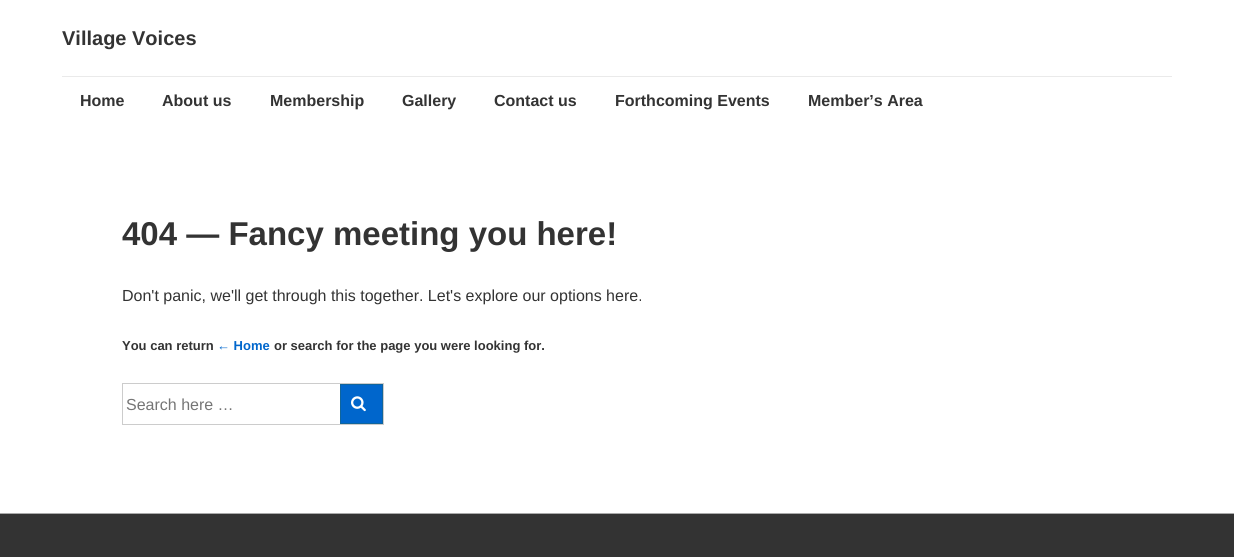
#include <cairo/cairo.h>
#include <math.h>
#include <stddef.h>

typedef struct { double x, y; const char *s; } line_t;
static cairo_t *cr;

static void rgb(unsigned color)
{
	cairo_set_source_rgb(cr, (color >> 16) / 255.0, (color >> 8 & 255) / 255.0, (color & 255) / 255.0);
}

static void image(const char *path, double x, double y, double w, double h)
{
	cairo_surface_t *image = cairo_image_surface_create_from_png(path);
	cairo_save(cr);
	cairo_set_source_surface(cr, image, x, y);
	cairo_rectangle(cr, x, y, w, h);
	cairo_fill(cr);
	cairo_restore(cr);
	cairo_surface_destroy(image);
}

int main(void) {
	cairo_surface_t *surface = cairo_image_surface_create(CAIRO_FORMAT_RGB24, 1234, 557);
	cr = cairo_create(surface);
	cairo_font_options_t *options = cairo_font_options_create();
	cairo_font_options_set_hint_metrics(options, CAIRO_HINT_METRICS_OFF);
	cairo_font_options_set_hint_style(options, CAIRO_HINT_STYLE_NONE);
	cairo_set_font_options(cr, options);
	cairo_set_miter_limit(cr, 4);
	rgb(0xffffff);
	cairo_paint(cr);
	rgb(0xeaeaea);
	cairo_rectangle(cr, 62, 76, 1110, 1);
	cairo_fill(cr);
	cairo_rectangle(cr, 122.5, 383.5, 261, 41);
	rgb(0xcccccc);
	cairo_set_line_width(cr, 1);
	cairo_stroke(cr);
	rgb(0x0066cc);
	cairo_rectangle(cr, 340.5, 384.5, 42, 39);
	cairo_fill_preserve(cr);
	rgb(0x10659c);
	cairo_stroke(cr);
	image("img/1.png", 351, 396, 15, 16);
	rgb(0x333333);
	cairo_rectangle(cr, 0, 514, 1234, 43);
	cairo_fill(cr);
	rgb(0xaaaaaa);
	cairo_rectangle(cr, 0, 513, 1234, 1);
	cairo_fill(cr);
	cairo_select_font_face(cr, "Liberation Sans", CAIRO_FONT_SLANT_NORMAL, CAIRO_FONT_WEIGHT_BOLD);
	cairo_set_font_size(cr, 20);
	rgb(0x333333);
	cairo_move_to(cr, 62, 45);
	cairo_show_text(cr, "Village Voices");
	cairo_set_font_size(cr, 16);
	{
		static const line_t items[] = {
			{80, 106, "Home"},
			{162, 106, "About us"},
			{270, 106, "Membership"},
			{402, 106, "Gallery"},
			{494, 106, "Contact us"},
			{615, 106, "Forthcoming Events"},
			{808, 106, "Member’s Area"},
		};
		for (size_t i = 0; i < sizeof items / sizeof *items; i++) {
			cairo_move_to(cr, items[i].x, items[i].y);
			cairo_show_text(cr, items[i].s);
		}
	}
	cairo_set_font_size(cr, 33);
	cairo_move_to(cr, 122, 245);
	cairo_show_text(cr, "404 — Fancy meeting you here!");
	cairo_select_font_face(cr, "Liberation Sans", CAIRO_FONT_SLANT_NORMAL, CAIRO_FONT_WEIGHT_NORMAL);
	cairo_set_font_size(cr, 16);
	cairo_move_to(cr, 122, 301);
	cairo_show_text(cr, "Don't panic, we'll get through this together. Let's explore our options here.");
	cairo_select_font_face(cr, "Liberation Sans", CAIRO_FONT_SLANT_NORMAL, CAIRO_FONT_WEIGHT_BOLD);
	cairo_set_font_size(cr, 13);
	cairo_move_to(cr, 122, 350);
	cairo_show_text(cr, "You can return");
	rgb(0x0066cc);
	cairo_move_to(cr, 217, 350);
	cairo_show_text(cr, "← Home");
	rgb(0x333333);
	cairo_move_to(cr, 274, 350);
	cairo_show_text(cr, "or search for the page you were looking for.");
	cairo_select_font_face(cr, "Liberation Sans", CAIRO_FONT_SLANT_NORMAL, CAIRO_FONT_WEIGHT_NORMAL);
	cairo_set_font_size(cr, 16);
	rgb(0x757575);
	cairo_move_to(cr, 126, 410);
	cairo_show_text(cr, "Search here …");
	cairo_surface_write_to_png(surface, "page.png");
	cairo_font_options_destroy(options);
	cairo_destroy(cr);
	cairo_surface_destroy(surface);
	return 0;
}
